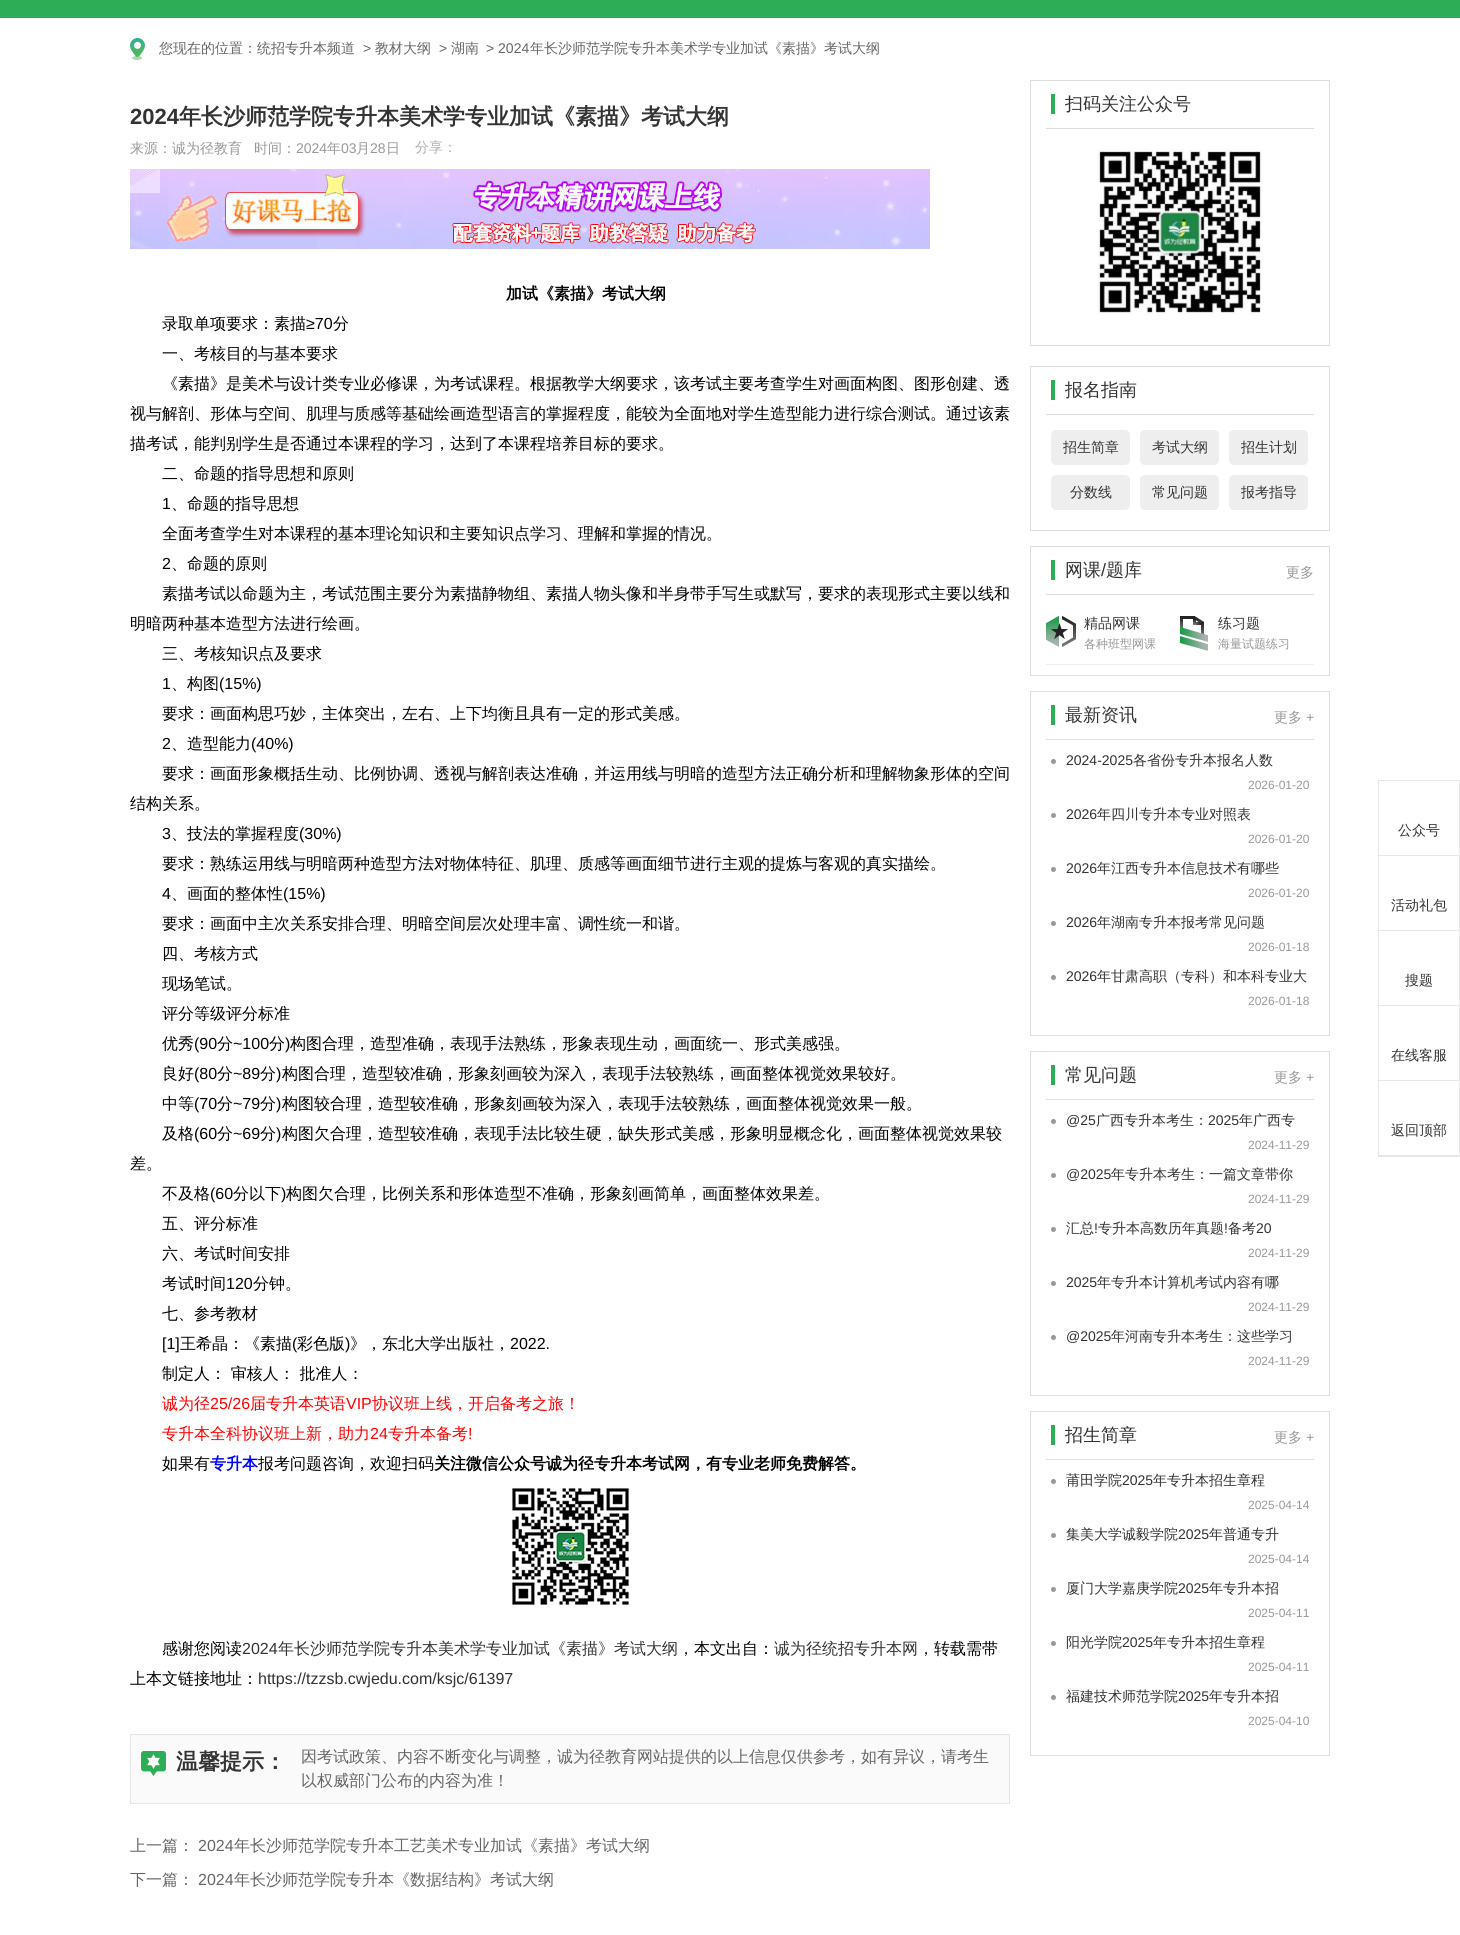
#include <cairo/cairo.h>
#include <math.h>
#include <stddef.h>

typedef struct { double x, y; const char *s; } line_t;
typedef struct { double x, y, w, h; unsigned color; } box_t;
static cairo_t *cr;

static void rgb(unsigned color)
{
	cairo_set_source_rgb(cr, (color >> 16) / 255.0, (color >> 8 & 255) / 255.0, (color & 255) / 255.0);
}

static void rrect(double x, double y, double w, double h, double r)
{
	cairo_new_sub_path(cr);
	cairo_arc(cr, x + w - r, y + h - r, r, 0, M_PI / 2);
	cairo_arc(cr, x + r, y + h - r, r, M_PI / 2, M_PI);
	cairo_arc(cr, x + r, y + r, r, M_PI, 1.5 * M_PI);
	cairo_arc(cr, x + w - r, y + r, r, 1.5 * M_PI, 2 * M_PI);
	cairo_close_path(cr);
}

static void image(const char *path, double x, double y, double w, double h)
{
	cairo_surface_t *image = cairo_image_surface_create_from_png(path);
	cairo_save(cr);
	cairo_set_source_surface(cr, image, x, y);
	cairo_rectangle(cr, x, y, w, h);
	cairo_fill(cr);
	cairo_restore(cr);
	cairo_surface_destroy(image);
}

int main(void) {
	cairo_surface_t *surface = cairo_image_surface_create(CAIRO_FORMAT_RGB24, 1460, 1935);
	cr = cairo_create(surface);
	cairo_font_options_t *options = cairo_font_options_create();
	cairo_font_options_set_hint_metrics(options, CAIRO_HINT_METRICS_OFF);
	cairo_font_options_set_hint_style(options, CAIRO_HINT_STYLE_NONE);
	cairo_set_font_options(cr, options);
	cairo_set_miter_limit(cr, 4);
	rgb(0xffffff);
	cairo_paint(cr);
	rgb(0x2dae56);
	cairo_rectangle(cr, 0, 0, 1460, 18);
	cairo_fill(cr);
	image("img/1.png", 130, 38, 15, 22);
	image("img/2.png", 130, 169, 800, 80);
	image("img/3.png", 511, 1487, 119, 118);
	rgb(0xfafafa);
	cairo_rectangle(cr, 130.5, 1734.5, 879, 69);
	cairo_fill_preserve(cr);
	rgb(0xe5e5e5);
	cairo_set_line_width(cr, 1);
	cairo_stroke(cr);
	image("img/4.png", 141, 1751, 25, 25);
	cairo_rectangle(cr, 1030.5, 80.5, 299, 265);
	rgb(0xdddddd);
	cairo_stroke(cr);
	cairo_rectangle(cr, 1046, 128, 268, 1);
	cairo_fill(cr);
	rgb(0x2dae56);
	cairo_rectangle(cr, 1051, 94, 4, 20);
	cairo_fill(cr);
	image("img/5.png", 1097, 149, 166, 166);
	cairo_rectangle(cr, 1030.5, 366.5, 299, 164);
	rgb(0xdddddd);
	cairo_stroke(cr);
	cairo_rectangle(cr, 1046, 414, 268, 1);
	cairo_fill(cr);
	rgb(0x2dae56);
	cairo_rectangle(cr, 1051, 380, 4, 20);
	cairo_fill(cr);
	rgb(0xeeeeee);
	rrect(1051, 430, 79, 35, 5);
	cairo_fill(cr);
	rrect(1140, 430, 79, 35, 5);
	cairo_fill(cr);
	rrect(1229, 430, 79, 35, 5);
	cairo_fill(cr);
	rrect(1051, 475, 79, 35, 5);
	cairo_fill(cr);
	rrect(1140, 475, 79, 35, 5);
	cairo_fill(cr);
	rrect(1229, 475, 79, 35, 5);
	cairo_fill(cr);
	cairo_rectangle(cr, 1030.5, 546.5, 299, 129);
	rgb(0xdddddd);
	cairo_stroke(cr);
	{
		static const box_t items[] = {
			{1046, 594, 268, 1, 0xdddddd},
			{1051, 560, 4, 20, 0x2dae56},
			{1046, 664, 268, 1, 0xeeeeee},
		};
		for (size_t i = 0; i < sizeof items / sizeof *items; i++) {
			rgb(items[i].color);
			cairo_rectangle(cr, items[i].x, items[i].y, items[i].w, items[i].h);
			cairo_fill(cr);
		}
	}
	image("img/6.png", 1046, 616, 30, 31);
	image("img/7.png", 1180, 616, 28, 35);
	cairo_rectangle(cr, 1030.5, 691.5, 299, 344);
	rgb(0xdddddd);
	cairo_stroke(cr);
	cairo_rectangle(cr, 1046, 739, 268, 1);
	cairo_fill(cr);
	rgb(0x2dae56);
	cairo_rectangle(cr, 1051, 705, 4, 20);
	cairo_fill(cr);
	rgb(0x999999);
	cairo_arc(cr, 1053.5, 761.5, 2.5, 0, 2 * M_PI);
	cairo_fill(cr);
	cairo_arc(cr, 1053.5, 815.5, 2.5, 0, 2 * M_PI);
	cairo_fill(cr);
	cairo_arc(cr, 1053.5, 869.5, 2.5, 0, 2 * M_PI);
	cairo_fill(cr);
	cairo_arc(cr, 1053.5, 923.5, 2.5, 0, 2 * M_PI);
	cairo_fill(cr);
	cairo_arc(cr, 1053.5, 977.5, 2.5, 0, 2 * M_PI);
	cairo_fill(cr);
	cairo_rectangle(cr, 1030.5, 1051.5, 299, 344);
	rgb(0xdddddd);
	cairo_stroke(cr);
	cairo_rectangle(cr, 1046, 1099, 268, 1);
	cairo_fill(cr);
	rgb(0x2dae56);
	cairo_rectangle(cr, 1051, 1065, 4, 20);
	cairo_fill(cr);
	rgb(0x999999);
	cairo_arc(cr, 1053.5, 1121.5, 2.5, 0, 2 * M_PI);
	cairo_fill(cr);
	cairo_arc(cr, 1053.5, 1175.5, 2.5, 0, 2 * M_PI);
	cairo_fill(cr);
	cairo_arc(cr, 1053.5, 1229.5, 2.5, 0, 2 * M_PI);
	cairo_fill(cr);
	cairo_arc(cr, 1053.5, 1283.5, 2.5, 0, 2 * M_PI);
	cairo_fill(cr);
	cairo_arc(cr, 1053.5, 1337.5, 2.5, 0, 2 * M_PI);
	cairo_fill(cr);
	cairo_rectangle(cr, 1030.5, 1411.5, 299, 344);
	rgb(0xdddddd);
	cairo_stroke(cr);
	cairo_rectangle(cr, 1046, 1459, 268, 1);
	cairo_fill(cr);
	rgb(0x2dae56);
	cairo_rectangle(cr, 1051, 1425, 4, 20);
	cairo_fill(cr);
	rgb(0x999999);
	cairo_arc(cr, 1053.5, 1481.5, 2.5, 0, 2 * M_PI);
	cairo_fill(cr);
	cairo_arc(cr, 1053.5, 1535.5, 2.5, 0, 2 * M_PI);
	cairo_fill(cr);
	cairo_arc(cr, 1053.5, 1589.5, 2.5, 0, 2 * M_PI);
	cairo_fill(cr);
	cairo_arc(cr, 1053.5, 1643.5, 2.5, 0, 2 * M_PI);
	cairo_fill(cr);
	cairo_arc(cr, 1053.5, 1697.5, 2.5, 0, 2 * M_PI);
	cairo_fill(cr);
	cairo_rectangle(cr, 1378.5, 780.5, 81, 376);
	rgb(0xe7e7e7);
	cairo_stroke(cr);
	{
		static const box_t items[] = {
			{1379, 855, 80, 1, 0xe7e7e7},
			{1379, 930, 80, 1, 0xe7e7e7},
			{1379, 1005, 80, 1, 0xe7e7e7},
			{1379, 1080, 80, 1, 0xe7e7e7},
			{1379, 1155, 80, 1, 0xe7e7e7},
		};
		for (size_t i = 0; i < sizeof items / sizeof *items; i++) {
			rgb(items[i].color);
			cairo_rectangle(cr, items[i].x, items[i].y, items[i].w, items[i].h);
			cairo_fill(cr);
		}
	}
	cairo_select_font_face(cr, "WenQuanYi Zen Hei Medium", CAIRO_FONT_SLANT_NORMAL, CAIRO_FONT_WEIGHT_NORMAL);
	cairo_set_font_size(cr, 14);
	rgb(0x666666);
	cairo_move_to(cr, 159, 53);
	cairo_show_text(cr, "您现在的位置：统招专升本频道");
	cairo_select_font_face(cr, "Liberation Sans", CAIRO_FONT_SLANT_NORMAL, CAIRO_FONT_WEIGHT_NORMAL);
	cairo_move_to(cr, 363, 53);
	cairo_show_text(cr, ">");
	cairo_select_font_face(cr, "WenQuanYi Zen Hei Medium", CAIRO_FONT_SLANT_NORMAL, CAIRO_FONT_WEIGHT_NORMAL);
	cairo_move_to(cr, 375, 53);
	cairo_show_text(cr, "教材大纲");
	cairo_select_font_face(cr, "Liberation Sans", CAIRO_FONT_SLANT_NORMAL, CAIRO_FONT_WEIGHT_NORMAL);
	cairo_move_to(cr, 439, 53);
	cairo_show_text(cr, ">");
	cairo_select_font_face(cr, "WenQuanYi Zen Hei Medium", CAIRO_FONT_SLANT_NORMAL, CAIRO_FONT_WEIGHT_NORMAL);
	cairo_move_to(cr, 451, 53);
	cairo_show_text(cr, "湖南");
	cairo_select_font_face(cr, "Liberation Sans", CAIRO_FONT_SLANT_NORMAL, CAIRO_FONT_WEIGHT_NORMAL);
	cairo_move_to(cr, 486, 53);
	cairo_show_text(cr, "> 2024");
	cairo_select_font_face(cr, "WenQuanYi Zen Hei Medium", CAIRO_FONT_SLANT_NORMAL, CAIRO_FONT_WEIGHT_NORMAL);
	cairo_move_to(cr, 530, 53);
	cairo_show_text(cr, "年长沙师范学院专升本美术学专业加试《素描》考试大纲");
	cairo_select_font_face(cr, "Liberation Sans", CAIRO_FONT_SLANT_NORMAL, CAIRO_FONT_WEIGHT_BOLD);
	cairo_set_font_size(cr, 22);
	rgb(0x333333);
	cairo_move_to(cr, 130, 124);
	cairo_show_text(cr, "2024");
	cairo_select_font_face(cr, "WenQuanYi Zen Hei", CAIRO_FONT_SLANT_NORMAL, CAIRO_FONT_WEIGHT_BOLD);
	cairo_move_to(cr, 179, 124);
	cairo_show_text(cr, "年长沙师范学院专升本美术学专业加试《素描》考试大纲");
	cairo_select_font_face(cr, "WenQuanYi Zen Hei Medium", CAIRO_FONT_SLANT_NORMAL, CAIRO_FONT_WEIGHT_NORMAL);
	cairo_set_font_size(cr, 14);
	rgb(0x999999);
	cairo_move_to(cr, 130, 153);
	cairo_show_text(cr, "来源：诚为径教育");
	cairo_move_to(cr, 254, 153);
	cairo_show_text(cr, "时间：");
	cairo_select_font_face(cr, "Liberation Sans", CAIRO_FONT_SLANT_NORMAL, CAIRO_FONT_WEIGHT_NORMAL);
	cairo_move_to(cr, 296, 153);
	cairo_show_text(cr, "2024");
	cairo_select_font_face(cr, "WenQuanYi Zen Hei Medium", CAIRO_FONT_SLANT_NORMAL, CAIRO_FONT_WEIGHT_NORMAL);
	cairo_move_to(cr, 327, 153);
	cairo_show_text(cr, "年");
	cairo_select_font_face(cr, "Liberation Sans", CAIRO_FONT_SLANT_NORMAL, CAIRO_FONT_WEIGHT_NORMAL);
	cairo_move_to(cr, 341, 153);
	cairo_show_text(cr, "03");
	cairo_select_font_face(cr, "WenQuanYi Zen Hei Medium", CAIRO_FONT_SLANT_NORMAL, CAIRO_FONT_WEIGHT_NORMAL);
	cairo_move_to(cr, 356, 153);
	cairo_show_text(cr, "月");
	cairo_select_font_face(cr, "Liberation Sans", CAIRO_FONT_SLANT_NORMAL, CAIRO_FONT_WEIGHT_NORMAL);
	cairo_move_to(cr, 370, 153);
	cairo_show_text(cr, "28");
	cairo_select_font_face(cr, "WenQuanYi Zen Hei Medium", CAIRO_FONT_SLANT_NORMAL, CAIRO_FONT_WEIGHT_NORMAL);
	cairo_move_to(cr, 386, 153);
	cairo_show_text(cr, "日");
	rgb(0xb0afaf);
	cairo_move_to(cr, 415, 152);
	cairo_show_text(cr, "分享：");
	cairo_select_font_face(cr, "WenQuanYi Zen Hei", CAIRO_FONT_SLANT_NORMAL, CAIRO_FONT_WEIGHT_BOLD);
	cairo_set_font_size(cr, 16);
	rgb(0x000000);
	cairo_move_to(cr, 506, 299);
	cairo_show_text(cr, "加试《素描》考试大纲");
	cairo_select_font_face(cr, "WenQuanYi Zen Hei Medium", CAIRO_FONT_SLANT_NORMAL, CAIRO_FONT_WEIGHT_NORMAL);
	cairo_move_to(cr, 162, 329);
	cairo_show_text(cr, "录取单项要求：素描");
	cairo_select_font_face(cr, "Liberation Sans", CAIRO_FONT_SLANT_NORMAL, CAIRO_FONT_WEIGHT_NORMAL);
	cairo_move_to(cr, 306, 329);
	cairo_show_text(cr, "≥70");
	cairo_select_font_face(cr, "WenQuanYi Zen Hei Medium", CAIRO_FONT_SLANT_NORMAL, CAIRO_FONT_WEIGHT_NORMAL);
	{
		static const line_t items[] = {
			{333, 329, "分"},
			{162, 359, "一、考核目的与基本要求"},
			{162, 389, "《素描》是美术与设计类专业必修课，为考试课程。根据教学大纲要求，该考试主要考查学生对画面构图、图形创建、透"},
			{130, 419, "视与解剖、形体与空间、肌理与质感等基础绘画造型语言的掌握程度，能较为全面地对学生造型能力进行综合测试。通过该素"},
			{130, 449, "描考试，能判别学生是否通过本课程的学习，达到了本课程培养目标的要求。"},
			{162, 479, "二、命题的指导思想和原则"},
		};
		for (size_t i = 0; i < sizeof items / sizeof *items; i++) {
			cairo_move_to(cr, items[i].x, items[i].y);
			cairo_show_text(cr, items[i].s);
		}
	}
	cairo_select_font_face(cr, "Liberation Sans", CAIRO_FONT_SLANT_NORMAL, CAIRO_FONT_WEIGHT_NORMAL);
	cairo_move_to(cr, 162, 509);
	cairo_show_text(cr, "1");
	cairo_select_font_face(cr, "WenQuanYi Zen Hei Medium", CAIRO_FONT_SLANT_NORMAL, CAIRO_FONT_WEIGHT_NORMAL);
	cairo_move_to(cr, 171, 509);
	cairo_show_text(cr, "、命题的指导思想");
	cairo_move_to(cr, 162, 539);
	cairo_show_text(cr, "全面考查学生对本课程的基本理论知识和主要知识点学习、理解和掌握的情况。");
	cairo_select_font_face(cr, "Liberation Sans", CAIRO_FONT_SLANT_NORMAL, CAIRO_FONT_WEIGHT_NORMAL);
	cairo_move_to(cr, 162, 569);
	cairo_show_text(cr, "2");
	cairo_select_font_face(cr, "WenQuanYi Zen Hei Medium", CAIRO_FONT_SLANT_NORMAL, CAIRO_FONT_WEIGHT_NORMAL);
	{
		static const line_t items[] = {
			{171, 569, "、命题的原则"},
			{162, 599, "素描考试以命题为主，考试范围主要分为素描静物组、素描人物头像和半身带手写生或默写，要求的表现形式主要以线和"},
			{130, 629, "明暗两种基本造型方法进行绘画。"},
			{162, 659, "三、考核知识点及要求"},
		};
		for (size_t i = 0; i < sizeof items / sizeof *items; i++) {
			cairo_move_to(cr, items[i].x, items[i].y);
			cairo_show_text(cr, items[i].s);
		}
	}
	cairo_select_font_face(cr, "Liberation Sans", CAIRO_FONT_SLANT_NORMAL, CAIRO_FONT_WEIGHT_NORMAL);
	cairo_move_to(cr, 162, 689);
	cairo_show_text(cr, "1");
	cairo_select_font_face(cr, "WenQuanYi Zen Hei Medium", CAIRO_FONT_SLANT_NORMAL, CAIRO_FONT_WEIGHT_NORMAL);
	cairo_move_to(cr, 171, 689);
	cairo_show_text(cr, "、构图");
	cairo_select_font_face(cr, "Liberation Sans", CAIRO_FONT_SLANT_NORMAL, CAIRO_FONT_WEIGHT_NORMAL);
	cairo_move_to(cr, 219, 689);
	cairo_show_text(cr, "(15%)");
	cairo_select_font_face(cr, "WenQuanYi Zen Hei Medium", CAIRO_FONT_SLANT_NORMAL, CAIRO_FONT_WEIGHT_NORMAL);
	cairo_move_to(cr, 162, 719);
	cairo_show_text(cr, "要求：画面构思巧妙，主体突出，左右、上下均衡且具有一定的形式美感。");
	cairo_select_font_face(cr, "Liberation Sans", CAIRO_FONT_SLANT_NORMAL, CAIRO_FONT_WEIGHT_NORMAL);
	cairo_move_to(cr, 162, 749);
	cairo_show_text(cr, "2");
	cairo_select_font_face(cr, "WenQuanYi Zen Hei Medium", CAIRO_FONT_SLANT_NORMAL, CAIRO_FONT_WEIGHT_NORMAL);
	cairo_move_to(cr, 171, 749);
	cairo_show_text(cr, "、造型能力");
	cairo_select_font_face(cr, "Liberation Sans", CAIRO_FONT_SLANT_NORMAL, CAIRO_FONT_WEIGHT_NORMAL);
	cairo_move_to(cr, 251, 749);
	cairo_show_text(cr, "(40%)");
	cairo_select_font_face(cr, "WenQuanYi Zen Hei Medium", CAIRO_FONT_SLANT_NORMAL, CAIRO_FONT_WEIGHT_NORMAL);
	cairo_move_to(cr, 162, 779);
	cairo_show_text(cr, "要求：画面形象概括生动、比例协调、透视与解剖表达准确，并运用线与明暗的造型方法正确分析和理解物象形体的空间");
	cairo_move_to(cr, 130, 809);
	cairo_show_text(cr, "结构关系。");
	cairo_select_font_face(cr, "Liberation Sans", CAIRO_FONT_SLANT_NORMAL, CAIRO_FONT_WEIGHT_NORMAL);
	cairo_move_to(cr, 162, 839);
	cairo_show_text(cr, "3");
	cairo_select_font_face(cr, "WenQuanYi Zen Hei Medium", CAIRO_FONT_SLANT_NORMAL, CAIRO_FONT_WEIGHT_NORMAL);
	cairo_move_to(cr, 171, 839);
	cairo_show_text(cr, "、技法的掌握程度");
	cairo_select_font_face(cr, "Liberation Sans", CAIRO_FONT_SLANT_NORMAL, CAIRO_FONT_WEIGHT_NORMAL);
	cairo_move_to(cr, 299, 839);
	cairo_show_text(cr, "(30%)");
	cairo_select_font_face(cr, "WenQuanYi Zen Hei Medium", CAIRO_FONT_SLANT_NORMAL, CAIRO_FONT_WEIGHT_NORMAL);
	cairo_move_to(cr, 162, 869);
	cairo_show_text(cr, "要求：熟练运用线与明暗两种造型方法对物体特征、肌理、质感等画面细节进行主观的提炼与客观的真实描绘。");
	cairo_select_font_face(cr, "Liberation Sans", CAIRO_FONT_SLANT_NORMAL, CAIRO_FONT_WEIGHT_NORMAL);
	cairo_move_to(cr, 162, 899);
	cairo_show_text(cr, "4");
	cairo_select_font_face(cr, "WenQuanYi Zen Hei Medium", CAIRO_FONT_SLANT_NORMAL, CAIRO_FONT_WEIGHT_NORMAL);
	cairo_move_to(cr, 171, 899);
	cairo_show_text(cr, "、画面的整体性");
	cairo_select_font_face(cr, "Liberation Sans", CAIRO_FONT_SLANT_NORMAL, CAIRO_FONT_WEIGHT_NORMAL);
	cairo_move_to(cr, 283, 899);
	cairo_show_text(cr, "(15%)");
	cairo_select_font_face(cr, "WenQuanYi Zen Hei Medium", CAIRO_FONT_SLANT_NORMAL, CAIRO_FONT_WEIGHT_NORMAL);
	{
		static const line_t items[] = {
			{162, 929, "要求：画面中主次关系安排合理、明暗空间层次处理丰富、调性统一和谐。"},
			{162, 959, "四、考核方式"},
			{162, 989, "现场笔试。"},
			{162, 1019, "评分等级评分标准"},
			{162, 1049, "优秀"},
		};
		for (size_t i = 0; i < sizeof items / sizeof *items; i++) {
			cairo_move_to(cr, items[i].x, items[i].y);
			cairo_show_text(cr, items[i].s);
		}
	}
	cairo_select_font_face(cr, "Liberation Sans", CAIRO_FONT_SLANT_NORMAL, CAIRO_FONT_WEIGHT_NORMAL);
	cairo_move_to(cr, 194, 1049);
	cairo_show_text(cr, "(90");
	cairo_select_font_face(cr, "WenQuanYi Zen Hei Medium", CAIRO_FONT_SLANT_NORMAL, CAIRO_FONT_WEIGHT_NORMAL);
	cairo_move_to(cr, 217, 1049);
	cairo_show_text(cr, "分");
	cairo_select_font_face(cr, "Liberation Sans", CAIRO_FONT_SLANT_NORMAL, CAIRO_FONT_WEIGHT_NORMAL);
	cairo_move_to(cr, 233, 1049);
	cairo_show_text(cr, "~100");
	cairo_select_font_face(cr, "WenQuanYi Zen Hei Medium", CAIRO_FONT_SLANT_NORMAL, CAIRO_FONT_WEIGHT_NORMAL);
	cairo_move_to(cr, 269, 1049);
	cairo_show_text(cr, "分");
	cairo_select_font_face(cr, "Liberation Sans", CAIRO_FONT_SLANT_NORMAL, CAIRO_FONT_WEIGHT_NORMAL);
	cairo_move_to(cr, 285, 1049);
	cairo_show_text(cr, ")");
	cairo_select_font_face(cr, "WenQuanYi Zen Hei Medium", CAIRO_FONT_SLANT_NORMAL, CAIRO_FONT_WEIGHT_NORMAL);
	cairo_move_to(cr, 290, 1049);
	cairo_show_text(cr, "构图合理，造型准确，表现手法熟练，形象表现生动，画面统一、形式美感强。");
	cairo_move_to(cr, 162, 1079);
	cairo_show_text(cr, "良好");
	cairo_select_font_face(cr, "Liberation Sans", CAIRO_FONT_SLANT_NORMAL, CAIRO_FONT_WEIGHT_NORMAL);
	cairo_move_to(cr, 194, 1079);
	cairo_show_text(cr, "(80");
	cairo_select_font_face(cr, "WenQuanYi Zen Hei Medium", CAIRO_FONT_SLANT_NORMAL, CAIRO_FONT_WEIGHT_NORMAL);
	cairo_move_to(cr, 217, 1079);
	cairo_show_text(cr, "分");
	cairo_select_font_face(cr, "Liberation Sans", CAIRO_FONT_SLANT_NORMAL, CAIRO_FONT_WEIGHT_NORMAL);
	cairo_move_to(cr, 233, 1079);
	cairo_show_text(cr, "~89");
	cairo_select_font_face(cr, "WenQuanYi Zen Hei Medium", CAIRO_FONT_SLANT_NORMAL, CAIRO_FONT_WEIGHT_NORMAL);
	cairo_move_to(cr, 260, 1079);
	cairo_show_text(cr, "分");
	cairo_select_font_face(cr, "Liberation Sans", CAIRO_FONT_SLANT_NORMAL, CAIRO_FONT_WEIGHT_NORMAL);
	cairo_move_to(cr, 276, 1079);
	cairo_show_text(cr, ")");
	cairo_select_font_face(cr, "WenQuanYi Zen Hei Medium", CAIRO_FONT_SLANT_NORMAL, CAIRO_FONT_WEIGHT_NORMAL);
	cairo_move_to(cr, 282, 1079);
	cairo_show_text(cr, "构图合理，造型较准确，形象刻画较为深入，表现手法较熟练，画面整体视觉效果较好。");
	cairo_move_to(cr, 162, 1109);
	cairo_show_text(cr, "中等");
	cairo_select_font_face(cr, "Liberation Sans", CAIRO_FONT_SLANT_NORMAL, CAIRO_FONT_WEIGHT_NORMAL);
	cairo_move_to(cr, 194, 1109);
	cairo_show_text(cr, "(70");
	cairo_select_font_face(cr, "WenQuanYi Zen Hei Medium", CAIRO_FONT_SLANT_NORMAL, CAIRO_FONT_WEIGHT_NORMAL);
	cairo_move_to(cr, 217, 1109);
	cairo_show_text(cr, "分");
	cairo_select_font_face(cr, "Liberation Sans", CAIRO_FONT_SLANT_NORMAL, CAIRO_FONT_WEIGHT_NORMAL);
	cairo_move_to(cr, 233, 1109);
	cairo_show_text(cr, "~79");
	cairo_select_font_face(cr, "WenQuanYi Zen Hei Medium", CAIRO_FONT_SLANT_NORMAL, CAIRO_FONT_WEIGHT_NORMAL);
	cairo_move_to(cr, 260, 1109);
	cairo_show_text(cr, "分");
	cairo_select_font_face(cr, "Liberation Sans", CAIRO_FONT_SLANT_NORMAL, CAIRO_FONT_WEIGHT_NORMAL);
	cairo_move_to(cr, 276, 1109);
	cairo_show_text(cr, ")");
	cairo_select_font_face(cr, "WenQuanYi Zen Hei Medium", CAIRO_FONT_SLANT_NORMAL, CAIRO_FONT_WEIGHT_NORMAL);
	cairo_move_to(cr, 282, 1109);
	cairo_show_text(cr, "构图较合理，造型较准确，形象刻画较为深入，表现手法较熟练，画面整体视觉效果一般。");
	cairo_move_to(cr, 162, 1139);
	cairo_show_text(cr, "及格");
	cairo_select_font_face(cr, "Liberation Sans", CAIRO_FONT_SLANT_NORMAL, CAIRO_FONT_WEIGHT_NORMAL);
	cairo_move_to(cr, 194, 1139);
	cairo_show_text(cr, "(60");
	cairo_select_font_face(cr, "WenQuanYi Zen Hei Medium", CAIRO_FONT_SLANT_NORMAL, CAIRO_FONT_WEIGHT_NORMAL);
	cairo_move_to(cr, 217, 1139);
	cairo_show_text(cr, "分");
	cairo_select_font_face(cr, "Liberation Sans", CAIRO_FONT_SLANT_NORMAL, CAIRO_FONT_WEIGHT_NORMAL);
	cairo_move_to(cr, 233, 1139);
	cairo_show_text(cr, "~69");
	cairo_select_font_face(cr, "WenQuanYi Zen Hei Medium", CAIRO_FONT_SLANT_NORMAL, CAIRO_FONT_WEIGHT_NORMAL);
	cairo_move_to(cr, 260, 1139);
	cairo_show_text(cr, "分");
	cairo_select_font_face(cr, "Liberation Sans", CAIRO_FONT_SLANT_NORMAL, CAIRO_FONT_WEIGHT_NORMAL);
	cairo_move_to(cr, 276, 1139);
	cairo_show_text(cr, ")");
	cairo_select_font_face(cr, "WenQuanYi Zen Hei Medium", CAIRO_FONT_SLANT_NORMAL, CAIRO_FONT_WEIGHT_NORMAL);
	{
		static const line_t items[] = {
			{282, 1139, "构图欠合理，造型较准确，表现手法比较生硬，缺失形式美感，形象明显概念化，画面整体视觉效果较"},
			{130, 1169, "差。"},
			{162, 1199, "不及格"},
		};
		for (size_t i = 0; i < sizeof items / sizeof *items; i++) {
			cairo_move_to(cr, items[i].x, items[i].y);
			cairo_show_text(cr, items[i].s);
		}
	}
	cairo_select_font_face(cr, "Liberation Sans", CAIRO_FONT_SLANT_NORMAL, CAIRO_FONT_WEIGHT_NORMAL);
	cairo_move_to(cr, 210, 1199);
	cairo_show_text(cr, "(60");
	cairo_select_font_face(cr, "WenQuanYi Zen Hei Medium", CAIRO_FONT_SLANT_NORMAL, CAIRO_FONT_WEIGHT_NORMAL);
	cairo_move_to(cr, 233, 1199);
	cairo_show_text(cr, "分以下");
	cairo_select_font_face(cr, "Liberation Sans", CAIRO_FONT_SLANT_NORMAL, CAIRO_FONT_WEIGHT_NORMAL);
	cairo_move_to(cr, 281, 1199);
	cairo_show_text(cr, ")");
	cairo_select_font_face(cr, "WenQuanYi Zen Hei Medium", CAIRO_FONT_SLANT_NORMAL, CAIRO_FONT_WEIGHT_NORMAL);
	{
		static const line_t items[] = {
			{286, 1199, "构图欠合理，比例关系和形体造型不准确，形象刻画简单，画面整体效果差。"},
			{162, 1229, "五、评分标准"},
			{162, 1259, "六、考试时间安排"},
			{162, 1289, "考试时间"},
		};
		for (size_t i = 0; i < sizeof items / sizeof *items; i++) {
			cairo_move_to(cr, items[i].x, items[i].y);
			cairo_show_text(cr, items[i].s);
		}
	}
	cairo_select_font_face(cr, "Liberation Sans", CAIRO_FONT_SLANT_NORMAL, CAIRO_FONT_WEIGHT_NORMAL);
	cairo_move_to(cr, 226, 1289);
	cairo_show_text(cr, "120");
	cairo_select_font_face(cr, "WenQuanYi Zen Hei Medium", CAIRO_FONT_SLANT_NORMAL, CAIRO_FONT_WEIGHT_NORMAL);
	cairo_move_to(cr, 253, 1289);
	cairo_show_text(cr, "分钟。");
	cairo_move_to(cr, 162, 1319);
	cairo_show_text(cr, "七、参考教材");
	cairo_select_font_face(cr, "Liberation Sans", CAIRO_FONT_SLANT_NORMAL, CAIRO_FONT_WEIGHT_NORMAL);
	cairo_move_to(cr, 162, 1349);
	cairo_show_text(cr, "[1]");
	cairo_select_font_face(cr, "WenQuanYi Zen Hei Medium", CAIRO_FONT_SLANT_NORMAL, CAIRO_FONT_WEIGHT_NORMAL);
	cairo_move_to(cr, 180, 1349);
	cairo_show_text(cr, "王希晶：《素描");
	cairo_select_font_face(cr, "Liberation Sans", CAIRO_FONT_SLANT_NORMAL, CAIRO_FONT_WEIGHT_NORMAL);
	cairo_move_to(cr, 292, 1349);
	cairo_show_text(cr, "(");
	cairo_select_font_face(cr, "WenQuanYi Zen Hei Medium", CAIRO_FONT_SLANT_NORMAL, CAIRO_FONT_WEIGHT_NORMAL);
	cairo_move_to(cr, 297, 1349);
	cairo_show_text(cr, "彩色版");
	cairo_select_font_face(cr, "Liberation Sans", CAIRO_FONT_SLANT_NORMAL, CAIRO_FONT_WEIGHT_NORMAL);
	cairo_move_to(cr, 345, 1349);
	cairo_show_text(cr, ")");
	cairo_select_font_face(cr, "WenQuanYi Zen Hei Medium", CAIRO_FONT_SLANT_NORMAL, CAIRO_FONT_WEIGHT_NORMAL);
	cairo_move_to(cr, 350, 1349);
	cairo_show_text(cr, "》，东北大学出版社，");
	cairo_select_font_face(cr, "Liberation Sans", CAIRO_FONT_SLANT_NORMAL, CAIRO_FONT_WEIGHT_NORMAL);
	cairo_move_to(cr, 510, 1349);
	cairo_show_text(cr, "2022.");
	cairo_select_font_face(cr, "WenQuanYi Zen Hei Medium", CAIRO_FONT_SLANT_NORMAL, CAIRO_FONT_WEIGHT_NORMAL);
	cairo_move_to(cr, 162, 1379);
	cairo_show_text(cr, "制定人： 审核人： 批准人：");
	rgb(0xff0000);
	cairo_move_to(cr, 162, 1409);
	cairo_show_text(cr, "诚为径");
	cairo_select_font_face(cr, "Liberation Sans", CAIRO_FONT_SLANT_NORMAL, CAIRO_FONT_WEIGHT_NORMAL);
	cairo_move_to(cr, 210, 1409);
	cairo_show_text(cr, "25/26");
	cairo_select_font_face(cr, "WenQuanYi Zen Hei Medium", CAIRO_FONT_SLANT_NORMAL, CAIRO_FONT_WEIGHT_NORMAL);
	cairo_move_to(cr, 250, 1409);
	cairo_show_text(cr, "届专升本英语");
	cairo_select_font_face(cr, "Liberation Sans", CAIRO_FONT_SLANT_NORMAL, CAIRO_FONT_WEIGHT_NORMAL);
	cairo_move_to(cr, 346, 1409);
	cairo_show_text(cr, "VIP");
	cairo_select_font_face(cr, "WenQuanYi Zen Hei Medium", CAIRO_FONT_SLANT_NORMAL, CAIRO_FONT_WEIGHT_NORMAL);
	cairo_move_to(cr, 372, 1409);
	cairo_show_text(cr, "协议班上线，开启备考之旅！");
	cairo_move_to(cr, 162, 1439);
	cairo_show_text(cr, "专升本全科协议班上新，助力");
	cairo_select_font_face(cr, "Liberation Sans", CAIRO_FONT_SLANT_NORMAL, CAIRO_FONT_WEIGHT_NORMAL);
	cairo_move_to(cr, 370, 1439);
	cairo_show_text(cr, "24");
	cairo_select_font_face(cr, "WenQuanYi Zen Hei Medium", CAIRO_FONT_SLANT_NORMAL, CAIRO_FONT_WEIGHT_NORMAL);
	cairo_move_to(cr, 388, 1439);
	cairo_show_text(cr, "专升本备考");
	cairo_select_font_face(cr, "Liberation Sans", CAIRO_FONT_SLANT_NORMAL, CAIRO_FONT_WEIGHT_NORMAL);
	cairo_move_to(cr, 468, 1439);
	cairo_show_text(cr, "!");
	cairo_select_font_face(cr, "WenQuanYi Zen Hei Medium", CAIRO_FONT_SLANT_NORMAL, CAIRO_FONT_WEIGHT_NORMAL);
	rgb(0x000000);
	cairo_move_to(cr, 162, 1469);
	cairo_show_text(cr, "如果有");
	cairo_select_font_face(cr, "WenQuanYi Zen Hei", CAIRO_FONT_SLANT_NORMAL, CAIRO_FONT_WEIGHT_BOLD);
	rgb(0x0000ff);
	cairo_move_to(cr, 210, 1469);
	cairo_show_text(cr, "专升本");
	cairo_select_font_face(cr, "WenQuanYi Zen Hei Medium", CAIRO_FONT_SLANT_NORMAL, CAIRO_FONT_WEIGHT_NORMAL);
	rgb(0x000000);
	cairo_move_to(cr, 258, 1469);
	cairo_show_text(cr, "报考问题咨询，欢迎扫码");
	cairo_select_font_face(cr, "WenQuanYi Zen Hei", CAIRO_FONT_SLANT_NORMAL, CAIRO_FONT_WEIGHT_BOLD);
	cairo_move_to(cr, 434, 1469);
	cairo_show_text(cr, "关注微信公众号诚为径专升本考试网，有专业老师免费解答。");
	cairo_select_font_face(cr, "WenQuanYi Zen Hei Medium", CAIRO_FONT_SLANT_NORMAL, CAIRO_FONT_WEIGHT_NORMAL);
	cairo_move_to(cr, 162, 1654);
	cairo_show_text(cr, "感谢您阅读");
	cairo_select_font_face(cr, "Liberation Sans", CAIRO_FONT_SLANT_NORMAL, CAIRO_FONT_WEIGHT_NORMAL);
	rgb(0x333333);
	cairo_move_to(cr, 242, 1654);
	cairo_show_text(cr, "2024");
	cairo_select_font_face(cr, "WenQuanYi Zen Hei Medium", CAIRO_FONT_SLANT_NORMAL, CAIRO_FONT_WEIGHT_NORMAL);
	cairo_move_to(cr, 278, 1654);
	cairo_show_text(cr, "年长沙师范学院专升本美术学专业加试《素描》考试大纲");
	rgb(0x000000);
	cairo_move_to(cr, 678, 1654);
	cairo_show_text(cr, "，本文出自：");
	rgb(0x333333);
	cairo_move_to(cr, 774, 1654);
	cairo_show_text(cr, "诚为径统招专升本网");
	rgb(0x000000);
	cairo_move_to(cr, 918, 1654);
	cairo_show_text(cr, "，转载需带");
	cairo_move_to(cr, 130, 1684);
	cairo_show_text(cr, "上本文链接地址：");
	cairo_select_font_face(cr, "Liberation Sans", CAIRO_FONT_SLANT_NORMAL, CAIRO_FONT_WEIGHT_NORMAL);
	rgb(0x333333);
	cairo_move_to(cr, 258, 1684);
	cairo_show_text(cr, "https://tzzsb.cwjedu.com/ksjc/61397");
	cairo_select_font_face(cr, "WenQuanYi Zen Hei", CAIRO_FONT_SLANT_NORMAL, CAIRO_FONT_WEIGHT_BOLD);
	cairo_set_font_size(cr, 22);
	cairo_move_to(cr, 176, 1769);
	cairo_show_text(cr, "温馨提示：");
	cairo_select_font_face(cr, "WenQuanYi Zen Hei Medium", CAIRO_FONT_SLANT_NORMAL, CAIRO_FONT_WEIGHT_NORMAL);
	cairo_set_font_size(cr, 16);
	rgb(0x666666);
	{
		static const line_t items[] = {
			{301, 1762, "因考试政策、内容不断变化与调整，诚为径教育网站提供的以上信息仅供参考，如有异议，请考生"},
			{301, 1786, "以权威部门公布的内容为准！"},
			{130, 1851, "上一篇："},
		};
		for (size_t i = 0; i < sizeof items / sizeof *items; i++) {
			cairo_move_to(cr, items[i].x, items[i].y);
			cairo_show_text(cr, items[i].s);
		}
	}
	cairo_select_font_face(cr, "Liberation Sans", CAIRO_FONT_SLANT_NORMAL, CAIRO_FONT_WEIGHT_NORMAL);
	cairo_move_to(cr, 198, 1851);
	cairo_show_text(cr, "2024");
	cairo_select_font_face(cr, "WenQuanYi Zen Hei Medium", CAIRO_FONT_SLANT_NORMAL, CAIRO_FONT_WEIGHT_NORMAL);
	cairo_move_to(cr, 234, 1851);
	cairo_show_text(cr, "年长沙师范学院专升本工艺美术专业加试《素描》考试大纲");
	cairo_move_to(cr, 130, 1885);
	cairo_show_text(cr, "下一篇：");
	cairo_select_font_face(cr, "Liberation Sans", CAIRO_FONT_SLANT_NORMAL, CAIRO_FONT_WEIGHT_NORMAL);
	cairo_move_to(cr, 198, 1885);
	cairo_show_text(cr, "2024");
	cairo_select_font_face(cr, "WenQuanYi Zen Hei Medium", CAIRO_FONT_SLANT_NORMAL, CAIRO_FONT_WEIGHT_NORMAL);
	cairo_move_to(cr, 234, 1885);
	cairo_show_text(cr, "年长沙师范学院专升本《数据结构》考试大纲");
	cairo_set_font_size(cr, 18);
	rgb(0x333333);
	cairo_move_to(cr, 1065, 110);
	cairo_show_text(cr, "扫码关注公众号");
	cairo_move_to(cr, 1065, 396);
	cairo_show_text(cr, "报名指南");
	cairo_set_font_size(cr, 14);
	{
		static const line_t items[] = {
			{1063, 452, "招生简章"},
			{1152, 452, "考试大纲"},
			{1241, 452, "招生计划"},
			{1070, 497, "分数线"},
			{1152, 497, "常见问题"},
			{1241, 497, "报考指导"},
		};
		for (size_t i = 0; i < sizeof items / sizeof *items; i++) {
			cairo_move_to(cr, items[i].x, items[i].y);
			cairo_show_text(cr, items[i].s);
		}
	}
	cairo_set_font_size(cr, 18);
	cairo_move_to(cr, 1065, 576);
	cairo_show_text(cr, "网课");
	cairo_select_font_face(cr, "Liberation Sans", CAIRO_FONT_SLANT_NORMAL, CAIRO_FONT_WEIGHT_NORMAL);
	cairo_move_to(cr, 1101, 576);
	cairo_show_text(cr, "/");
	cairo_select_font_face(cr, "WenQuanYi Zen Hei Medium", CAIRO_FONT_SLANT_NORMAL, CAIRO_FONT_WEIGHT_NORMAL);
	cairo_move_to(cr, 1106, 576);
	cairo_show_text(cr, "题库");
	cairo_set_font_size(cr, 14);
	rgb(0x999999);
	cairo_move_to(cr, 1286, 577);
	cairo_show_text(cr, "更多");
	rgb(0x333333);
	cairo_move_to(cr, 1084, 628);
	cairo_show_text(cr, "精品网课");
	cairo_set_font_size(cr, 12);
	rgb(0x999999);
	cairo_move_to(cr, 1084, 648);
	cairo_show_text(cr, "各种班型网课");
	cairo_set_font_size(cr, 14);
	rgb(0x333333);
	cairo_move_to(cr, 1218, 628);
	cairo_show_text(cr, "练习题");
	cairo_set_font_size(cr, 12);
	rgb(0x999999);
	cairo_move_to(cr, 1218, 648);
	cairo_show_text(cr, "海量试题练习");
	cairo_set_font_size(cr, 18);
	rgb(0x333333);
	cairo_move_to(cr, 1065, 721);
	cairo_show_text(cr, "最新资讯");
	cairo_set_font_size(cr, 14);
	rgb(0x999999);
	cairo_move_to(cr, 1274, 722);
	cairo_show_text(cr, "更多");
	cairo_select_font_face(cr, "Liberation Sans", CAIRO_FONT_SLANT_NORMAL, CAIRO_FONT_WEIGHT_NORMAL);
	cairo_move_to(cr, 1306, 722);
	cairo_show_text(cr, "+");
	rgb(0x333333);
	cairo_move_to(cr, 1066, 765);
	cairo_show_text(cr, "2024-2025");
	cairo_select_font_face(cr, "WenQuanYi Zen Hei Medium", CAIRO_FONT_SLANT_NORMAL, CAIRO_FONT_WEIGHT_NORMAL);
	cairo_move_to(cr, 1133, 765);
	cairo_show_text(cr, "各省份专升本报名人数");
	cairo_select_font_face(cr, "Liberation Sans", CAIRO_FONT_SLANT_NORMAL, CAIRO_FONT_WEIGHT_NORMAL);
	cairo_set_font_size(cr, 12);
	rgb(0x999999);
	cairo_move_to(cr, 1248, 789);
	cairo_show_text(cr, "2026-01-20");
	cairo_set_font_size(cr, 14);
	rgb(0x333333);
	cairo_move_to(cr, 1066, 819);
	cairo_show_text(cr, "2026");
	cairo_select_font_face(cr, "WenQuanYi Zen Hei Medium", CAIRO_FONT_SLANT_NORMAL, CAIRO_FONT_WEIGHT_NORMAL);
	cairo_move_to(cr, 1097, 819);
	cairo_show_text(cr, "年四川专升本专业对照表");
	cairo_select_font_face(cr, "Liberation Sans", CAIRO_FONT_SLANT_NORMAL, CAIRO_FONT_WEIGHT_NORMAL);
	cairo_set_font_size(cr, 12);
	rgb(0x999999);
	cairo_move_to(cr, 1248, 843);
	cairo_show_text(cr, "2026-01-20");
	cairo_set_font_size(cr, 14);
	rgb(0x333333);
	cairo_move_to(cr, 1066, 873);
	cairo_show_text(cr, "2026");
	cairo_select_font_face(cr, "WenQuanYi Zen Hei Medium", CAIRO_FONT_SLANT_NORMAL, CAIRO_FONT_WEIGHT_NORMAL);
	cairo_move_to(cr, 1097, 873);
	cairo_show_text(cr, "年江西专升本信息技术有哪些");
	cairo_select_font_face(cr, "Liberation Sans", CAIRO_FONT_SLANT_NORMAL, CAIRO_FONT_WEIGHT_NORMAL);
	cairo_set_font_size(cr, 12);
	rgb(0x999999);
	cairo_move_to(cr, 1248, 897);
	cairo_show_text(cr, "2026-01-20");
	cairo_set_font_size(cr, 14);
	rgb(0x333333);
	cairo_move_to(cr, 1066, 927);
	cairo_show_text(cr, "2026");
	cairo_select_font_face(cr, "WenQuanYi Zen Hei Medium", CAIRO_FONT_SLANT_NORMAL, CAIRO_FONT_WEIGHT_NORMAL);
	cairo_move_to(cr, 1097, 927);
	cairo_show_text(cr, "年湖南专升本报考常见问题");
	cairo_select_font_face(cr, "Liberation Sans", CAIRO_FONT_SLANT_NORMAL, CAIRO_FONT_WEIGHT_NORMAL);
	cairo_set_font_size(cr, 12);
	rgb(0x999999);
	cairo_move_to(cr, 1248, 951);
	cairo_show_text(cr, "2026-01-18");
	cairo_set_font_size(cr, 14);
	rgb(0x333333);
	cairo_move_to(cr, 1066, 981);
	cairo_show_text(cr, "2026");
	cairo_select_font_face(cr, "WenQuanYi Zen Hei Medium", CAIRO_FONT_SLANT_NORMAL, CAIRO_FONT_WEIGHT_NORMAL);
	cairo_move_to(cr, 1097, 981);
	cairo_show_text(cr, "年甘肃高职（专科）和本科专业大");
	cairo_select_font_face(cr, "Liberation Sans", CAIRO_FONT_SLANT_NORMAL, CAIRO_FONT_WEIGHT_NORMAL);
	cairo_set_font_size(cr, 12);
	rgb(0x999999);
	cairo_move_to(cr, 1248, 1005);
	cairo_show_text(cr, "2026-01-18");
	cairo_select_font_face(cr, "WenQuanYi Zen Hei Medium", CAIRO_FONT_SLANT_NORMAL, CAIRO_FONT_WEIGHT_NORMAL);
	cairo_set_font_size(cr, 18);
	rgb(0x333333);
	cairo_move_to(cr, 1065, 1081);
	cairo_show_text(cr, "常见问题");
	cairo_set_font_size(cr, 14);
	rgb(0x999999);
	cairo_move_to(cr, 1274, 1082);
	cairo_show_text(cr, "更多");
	cairo_select_font_face(cr, "Liberation Sans", CAIRO_FONT_SLANT_NORMAL, CAIRO_FONT_WEIGHT_NORMAL);
	cairo_move_to(cr, 1306, 1082);
	cairo_show_text(cr, "+");
	rgb(0x333333);
	cairo_move_to(cr, 1066, 1125);
	cairo_show_text(cr, "@25");
	cairo_select_font_face(cr, "WenQuanYi Zen Hei Medium", CAIRO_FONT_SLANT_NORMAL, CAIRO_FONT_WEIGHT_NORMAL);
	cairo_move_to(cr, 1096, 1125);
	cairo_show_text(cr, "广西专升本考生：");
	cairo_select_font_face(cr, "Liberation Sans", CAIRO_FONT_SLANT_NORMAL, CAIRO_FONT_WEIGHT_NORMAL);
	cairo_move_to(cr, 1208, 1125);
	cairo_show_text(cr, "2025");
	cairo_select_font_face(cr, "WenQuanYi Zen Hei Medium", CAIRO_FONT_SLANT_NORMAL, CAIRO_FONT_WEIGHT_NORMAL);
	cairo_move_to(cr, 1239, 1125);
	cairo_show_text(cr, "年广西专");
	cairo_select_font_face(cr, "Liberation Sans", CAIRO_FONT_SLANT_NORMAL, CAIRO_FONT_WEIGHT_NORMAL);
	cairo_set_font_size(cr, 12);
	rgb(0x999999);
	cairo_move_to(cr, 1248, 1149);
	cairo_show_text(cr, "2024-11-29");
	cairo_set_font_size(cr, 14);
	rgb(0x333333);
	cairo_move_to(cr, 1066, 1179);
	cairo_show_text(cr, "@2025");
	cairo_select_font_face(cr, "WenQuanYi Zen Hei Medium", CAIRO_FONT_SLANT_NORMAL, CAIRO_FONT_WEIGHT_NORMAL);
	cairo_move_to(cr, 1111, 1179);
	cairo_show_text(cr, "年专升本考生：一篇文章带你");
	cairo_select_font_face(cr, "Liberation Sans", CAIRO_FONT_SLANT_NORMAL, CAIRO_FONT_WEIGHT_NORMAL);
	cairo_set_font_size(cr, 12);
	rgb(0x999999);
	cairo_move_to(cr, 1248, 1203);
	cairo_show_text(cr, "2024-11-29");
	cairo_select_font_face(cr, "WenQuanYi Zen Hei Medium", CAIRO_FONT_SLANT_NORMAL, CAIRO_FONT_WEIGHT_NORMAL);
	cairo_set_font_size(cr, 14);
	rgb(0x333333);
	cairo_move_to(cr, 1066, 1233);
	cairo_show_text(cr, "汇总");
	cairo_select_font_face(cr, "Liberation Sans", CAIRO_FONT_SLANT_NORMAL, CAIRO_FONT_WEIGHT_NORMAL);
	cairo_move_to(cr, 1094, 1233);
	cairo_show_text(cr, "!");
	cairo_select_font_face(cr, "WenQuanYi Zen Hei Medium", CAIRO_FONT_SLANT_NORMAL, CAIRO_FONT_WEIGHT_NORMAL);
	cairo_move_to(cr, 1098, 1233);
	cairo_show_text(cr, "专升本高数历年真题");
	cairo_select_font_face(cr, "Liberation Sans", CAIRO_FONT_SLANT_NORMAL, CAIRO_FONT_WEIGHT_NORMAL);
	cairo_move_to(cr, 1224, 1233);
	cairo_show_text(cr, "!");
	cairo_select_font_face(cr, "WenQuanYi Zen Hei Medium", CAIRO_FONT_SLANT_NORMAL, CAIRO_FONT_WEIGHT_NORMAL);
	cairo_move_to(cr, 1228, 1233);
	cairo_show_text(cr, "备考");
	cairo_select_font_face(cr, "Liberation Sans", CAIRO_FONT_SLANT_NORMAL, CAIRO_FONT_WEIGHT_NORMAL);
	cairo_move_to(cr, 1256, 1233);
	cairo_show_text(cr, "20");
	cairo_set_font_size(cr, 12);
	rgb(0x999999);
	cairo_move_to(cr, 1248, 1257);
	cairo_show_text(cr, "2024-11-29");
	cairo_set_font_size(cr, 14);
	rgb(0x333333);
	cairo_move_to(cr, 1066, 1287);
	cairo_show_text(cr, "2025");
	cairo_select_font_face(cr, "WenQuanYi Zen Hei Medium", CAIRO_FONT_SLANT_NORMAL, CAIRO_FONT_WEIGHT_NORMAL);
	cairo_move_to(cr, 1097, 1287);
	cairo_show_text(cr, "年专升本计算机考试内容有哪");
	cairo_select_font_face(cr, "Liberation Sans", CAIRO_FONT_SLANT_NORMAL, CAIRO_FONT_WEIGHT_NORMAL);
	cairo_set_font_size(cr, 12);
	rgb(0x999999);
	cairo_move_to(cr, 1248, 1311);
	cairo_show_text(cr, "2024-11-29");
	cairo_set_font_size(cr, 14);
	rgb(0x333333);
	cairo_move_to(cr, 1066, 1341);
	cairo_show_text(cr, "@2025");
	cairo_select_font_face(cr, "WenQuanYi Zen Hei Medium", CAIRO_FONT_SLANT_NORMAL, CAIRO_FONT_WEIGHT_NORMAL);
	cairo_move_to(cr, 1111, 1341);
	cairo_show_text(cr, "年河南专升本考生：这些学习");
	cairo_select_font_face(cr, "Liberation Sans", CAIRO_FONT_SLANT_NORMAL, CAIRO_FONT_WEIGHT_NORMAL);
	cairo_set_font_size(cr, 12);
	rgb(0x999999);
	cairo_move_to(cr, 1248, 1365);
	cairo_show_text(cr, "2024-11-29");
	cairo_select_font_face(cr, "WenQuanYi Zen Hei Medium", CAIRO_FONT_SLANT_NORMAL, CAIRO_FONT_WEIGHT_NORMAL);
	cairo_set_font_size(cr, 18);
	rgb(0x333333);
	cairo_move_to(cr, 1065, 1441);
	cairo_show_text(cr, "招生简章");
	cairo_set_font_size(cr, 14);
	rgb(0x999999);
	cairo_move_to(cr, 1274, 1442);
	cairo_show_text(cr, "更多");
	cairo_select_font_face(cr, "Liberation Sans", CAIRO_FONT_SLANT_NORMAL, CAIRO_FONT_WEIGHT_NORMAL);
	cairo_move_to(cr, 1306, 1442);
	cairo_show_text(cr, "+");
	cairo_select_font_face(cr, "WenQuanYi Zen Hei Medium", CAIRO_FONT_SLANT_NORMAL, CAIRO_FONT_WEIGHT_NORMAL);
	rgb(0x333333);
	cairo_move_to(cr, 1066, 1485);
	cairo_show_text(cr, "莆田学院");
	cairo_select_font_face(cr, "Liberation Sans", CAIRO_FONT_SLANT_NORMAL, CAIRO_FONT_WEIGHT_NORMAL);
	cairo_move_to(cr, 1122, 1485);
	cairo_show_text(cr, "2025");
	cairo_select_font_face(cr, "WenQuanYi Zen Hei Medium", CAIRO_FONT_SLANT_NORMAL, CAIRO_FONT_WEIGHT_NORMAL);
	cairo_move_to(cr, 1153, 1485);
	cairo_show_text(cr, "年专升本招生章程");
	cairo_select_font_face(cr, "Liberation Sans", CAIRO_FONT_SLANT_NORMAL, CAIRO_FONT_WEIGHT_NORMAL);
	cairo_set_font_size(cr, 12);
	rgb(0x999999);
	cairo_move_to(cr, 1248, 1509);
	cairo_show_text(cr, "2025-04-14");
	cairo_select_font_face(cr, "WenQuanYi Zen Hei Medium", CAIRO_FONT_SLANT_NORMAL, CAIRO_FONT_WEIGHT_NORMAL);
	cairo_set_font_size(cr, 14);
	rgb(0x333333);
	cairo_move_to(cr, 1066, 1539);
	cairo_show_text(cr, "集美大学诚毅学院");
	cairo_select_font_face(cr, "Liberation Sans", CAIRO_FONT_SLANT_NORMAL, CAIRO_FONT_WEIGHT_NORMAL);
	cairo_move_to(cr, 1178, 1539);
	cairo_show_text(cr, "2025");
	cairo_select_font_face(cr, "WenQuanYi Zen Hei Medium", CAIRO_FONT_SLANT_NORMAL, CAIRO_FONT_WEIGHT_NORMAL);
	cairo_move_to(cr, 1209, 1539);
	cairo_show_text(cr, "年普通专升");
	cairo_select_font_face(cr, "Liberation Sans", CAIRO_FONT_SLANT_NORMAL, CAIRO_FONT_WEIGHT_NORMAL);
	cairo_set_font_size(cr, 12);
	rgb(0x999999);
	cairo_move_to(cr, 1248, 1563);
	cairo_show_text(cr, "2025-04-14");
	cairo_select_font_face(cr, "WenQuanYi Zen Hei Medium", CAIRO_FONT_SLANT_NORMAL, CAIRO_FONT_WEIGHT_NORMAL);
	cairo_set_font_size(cr, 14);
	rgb(0x333333);
	cairo_move_to(cr, 1066, 1593);
	cairo_show_text(cr, "厦门大学嘉庚学院");
	cairo_select_font_face(cr, "Liberation Sans", CAIRO_FONT_SLANT_NORMAL, CAIRO_FONT_WEIGHT_NORMAL);
	cairo_move_to(cr, 1178, 1593);
	cairo_show_text(cr, "2025");
	cairo_select_font_face(cr, "WenQuanYi Zen Hei Medium", CAIRO_FONT_SLANT_NORMAL, CAIRO_FONT_WEIGHT_NORMAL);
	cairo_move_to(cr, 1209, 1593);
	cairo_show_text(cr, "年专升本招");
	cairo_select_font_face(cr, "Liberation Sans", CAIRO_FONT_SLANT_NORMAL, CAIRO_FONT_WEIGHT_NORMAL);
	cairo_set_font_size(cr, 12);
	rgb(0x999999);
	cairo_move_to(cr, 1248, 1617);
	cairo_show_text(cr, "2025-04-11");
	cairo_select_font_face(cr, "WenQuanYi Zen Hei Medium", CAIRO_FONT_SLANT_NORMAL, CAIRO_FONT_WEIGHT_NORMAL);
	cairo_set_font_size(cr, 14);
	rgb(0x333333);
	cairo_move_to(cr, 1066, 1647);
	cairo_show_text(cr, "阳光学院");
	cairo_select_font_face(cr, "Liberation Sans", CAIRO_FONT_SLANT_NORMAL, CAIRO_FONT_WEIGHT_NORMAL);
	cairo_move_to(cr, 1122, 1647);
	cairo_show_text(cr, "2025");
	cairo_select_font_face(cr, "WenQuanYi Zen Hei Medium", CAIRO_FONT_SLANT_NORMAL, CAIRO_FONT_WEIGHT_NORMAL);
	cairo_move_to(cr, 1153, 1647);
	cairo_show_text(cr, "年专升本招生章程");
	cairo_select_font_face(cr, "Liberation Sans", CAIRO_FONT_SLANT_NORMAL, CAIRO_FONT_WEIGHT_NORMAL);
	cairo_set_font_size(cr, 12);
	rgb(0x999999);
	cairo_move_to(cr, 1248, 1671);
	cairo_show_text(cr, "2025-04-11");
	cairo_select_font_face(cr, "WenQuanYi Zen Hei Medium", CAIRO_FONT_SLANT_NORMAL, CAIRO_FONT_WEIGHT_NORMAL);
	cairo_set_font_size(cr, 14);
	rgb(0x333333);
	cairo_move_to(cr, 1066, 1701);
	cairo_show_text(cr, "福建技术师范学院");
	cairo_select_font_face(cr, "Liberation Sans", CAIRO_FONT_SLANT_NORMAL, CAIRO_FONT_WEIGHT_NORMAL);
	cairo_move_to(cr, 1178, 1701);
	cairo_show_text(cr, "2025");
	cairo_select_font_face(cr, "WenQuanYi Zen Hei Medium", CAIRO_FONT_SLANT_NORMAL, CAIRO_FONT_WEIGHT_NORMAL);
	cairo_move_to(cr, 1209, 1701);
	cairo_show_text(cr, "年专升本招");
	cairo_select_font_face(cr, "Liberation Sans", CAIRO_FONT_SLANT_NORMAL, CAIRO_FONT_WEIGHT_NORMAL);
	cairo_set_font_size(cr, 12);
	rgb(0x999999);
	cairo_move_to(cr, 1248, 1725);
	cairo_show_text(cr, "2025-04-10");
	cairo_select_font_face(cr, "WenQuanYi Zen Hei Medium", CAIRO_FONT_SLANT_NORMAL, CAIRO_FONT_WEIGHT_NORMAL);
	cairo_set_font_size(cr, 14);
	rgb(0x333333);
	{
		static const line_t items[] = {
			{1398, 835, "公众号"},
			{1391, 910, "活动礼包"},
			{1405, 985, "搜题"},
			{1391, 1060, "在线客服"},
			{1391, 1135, "返回顶部"},
		};
		for (size_t i = 0; i < sizeof items / sizeof *items; i++) {
			cairo_move_to(cr, items[i].x, items[i].y);
			cairo_show_text(cr, items[i].s);
		}
	}
	cairo_surface_write_to_png(surface, "page.png");
	cairo_font_options_destroy(options);
	cairo_destroy(cr);
	cairo_surface_destroy(surface);
	return 0;
}
